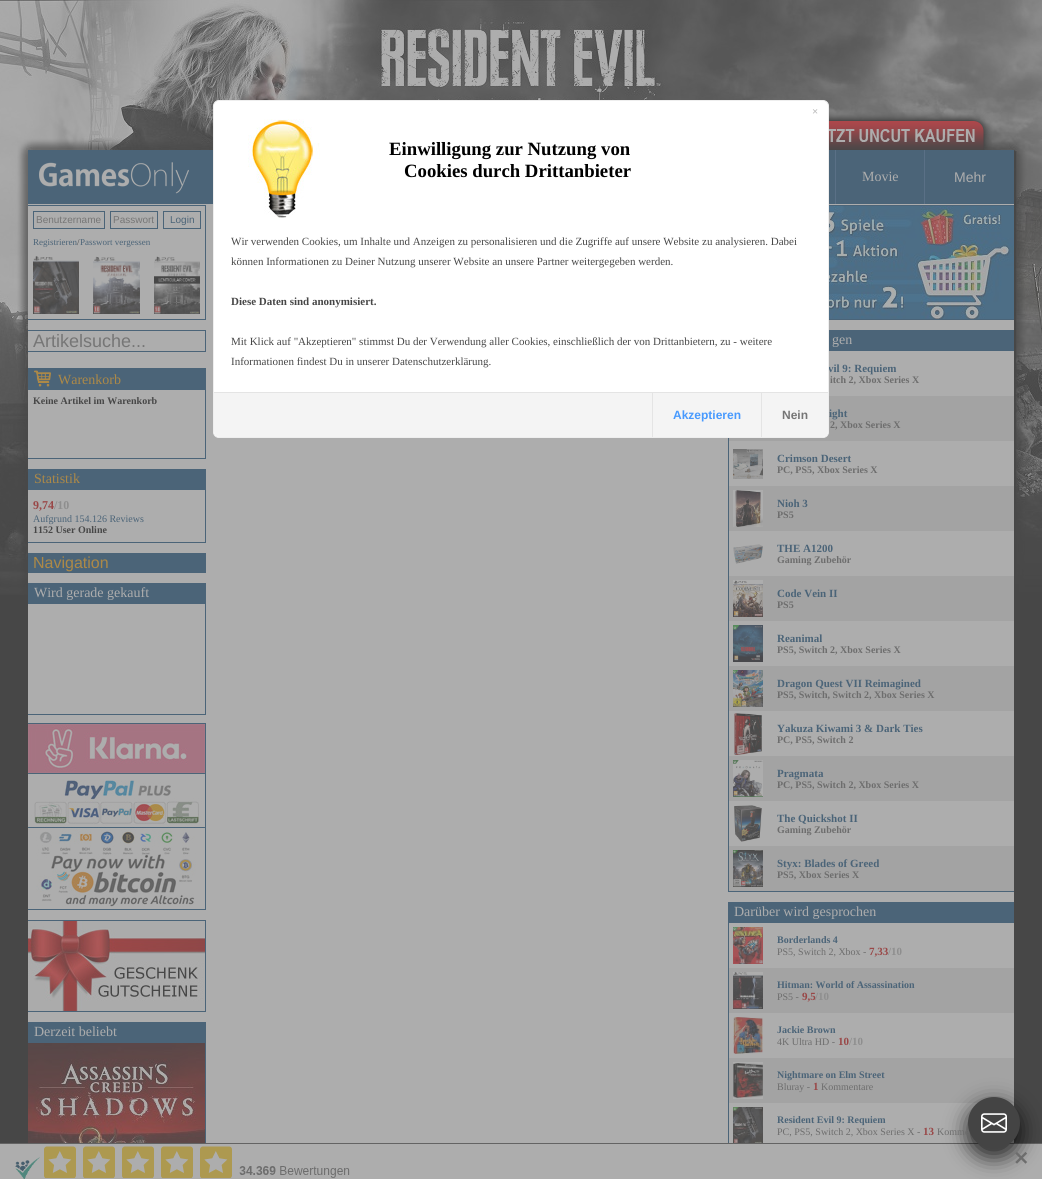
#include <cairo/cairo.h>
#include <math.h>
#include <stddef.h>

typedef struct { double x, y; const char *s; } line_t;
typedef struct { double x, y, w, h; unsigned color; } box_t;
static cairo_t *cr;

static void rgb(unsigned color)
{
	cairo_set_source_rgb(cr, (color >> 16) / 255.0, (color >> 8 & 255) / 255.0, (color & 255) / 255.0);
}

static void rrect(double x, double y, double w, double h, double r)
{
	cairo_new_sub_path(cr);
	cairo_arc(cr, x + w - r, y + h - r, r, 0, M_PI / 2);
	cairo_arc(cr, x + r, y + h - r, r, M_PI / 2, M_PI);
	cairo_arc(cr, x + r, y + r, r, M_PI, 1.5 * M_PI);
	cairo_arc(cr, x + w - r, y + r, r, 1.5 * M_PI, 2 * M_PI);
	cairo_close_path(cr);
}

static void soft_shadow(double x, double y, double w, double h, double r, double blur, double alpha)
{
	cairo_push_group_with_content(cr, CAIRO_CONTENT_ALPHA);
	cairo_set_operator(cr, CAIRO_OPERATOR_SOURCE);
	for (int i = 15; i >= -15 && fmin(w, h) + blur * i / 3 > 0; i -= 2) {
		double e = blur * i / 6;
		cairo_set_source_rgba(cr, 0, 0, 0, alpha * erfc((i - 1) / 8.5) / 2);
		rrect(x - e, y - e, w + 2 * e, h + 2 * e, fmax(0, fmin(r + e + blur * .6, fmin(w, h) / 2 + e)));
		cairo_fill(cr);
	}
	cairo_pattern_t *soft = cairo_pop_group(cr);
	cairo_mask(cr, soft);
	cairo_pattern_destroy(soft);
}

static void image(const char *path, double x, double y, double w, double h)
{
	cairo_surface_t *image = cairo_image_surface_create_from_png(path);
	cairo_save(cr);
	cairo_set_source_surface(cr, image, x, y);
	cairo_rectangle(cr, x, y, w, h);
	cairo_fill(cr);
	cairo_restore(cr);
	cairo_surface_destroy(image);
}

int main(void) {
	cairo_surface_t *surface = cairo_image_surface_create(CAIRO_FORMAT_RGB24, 1042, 1179);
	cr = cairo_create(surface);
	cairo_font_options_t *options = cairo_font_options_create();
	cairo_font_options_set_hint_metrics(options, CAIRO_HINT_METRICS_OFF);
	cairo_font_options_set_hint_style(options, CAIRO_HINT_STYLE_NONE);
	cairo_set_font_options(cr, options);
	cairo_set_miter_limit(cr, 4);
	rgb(0x474747);
	cairo_paint(cr);
	image("img/1.png", 0, 0, 1042, 595);
	image("img/3.png", 829, 112, 163, 38);
	rgb(0xadadad);
	cairo_rectangle(cr, 28, 204, 986, 939);
	cairo_fill(cr);
	image("img/4.png", 28, 150, 185, 54);
	{
		static const box_t items[] = {
			{829, 150, 6, 54, 0x4b6478},
			{836, 150, 88, 54, 0x4b6478},
			{835, 150, 1, 54, 0x5a7086},
			{925, 150, 89, 54, 0x4b6478},
			{924, 150, 1, 54, 0x5a7086},
			{28, 205, 178, 1, 0x4b6478},
			{205, 205, 1, 115, 0x4b6478},
			{28, 319, 178, 1, 0x4b6478},
		};
		for (size_t i = 0; i < sizeof items / sizeof *items; i++) {
			rgb(items[i].color);
			cairo_rectangle(cr, items[i].x, items[i].y, items[i].w, items[i].h);
			cairo_fill(cr);
		}
	}
	cairo_rectangle(cr, 33.5, 211.5, 71, 17);
	cairo_set_line_width(cr, 1);
	cairo_stroke(cr);
	cairo_rectangle(cr, 110.5, 211.5, 47, 17);
	cairo_stroke(cr);
	cairo_rectangle(cr, 163.5, 211.5, 37, 17);
	cairo_stroke(cr);
	image("img/5.png", 33, 256, 46, 58);
	image("img/6.png", 93, 256, 47, 58);
	image("img/7.png", 154, 256, 46, 58);
	{
		static const box_t items[] = {
			{28, 330, 178, 1, 0x4b6478},
			{205, 330, 1, 22, 0x4b6478},
			{28, 351, 178, 1, 0x4b6478},
			{28, 368, 178, 22, 0x4b6478},
		};
		for (size_t i = 0; i < sizeof items / sizeof *items; i++) {
			rgb(items[i].color);
			cairo_rectangle(cr, items[i].x, items[i].y, items[i].w, items[i].h);
			cairo_fill(cr);
		}
	}
	image("img/8.png", 34, 370, 17, 17);
	{
		static const box_t items[] = {
			{205, 389, 1, 70, 0x4b6478},
			{28, 458, 178, 1, 0x4b6478},
			{28, 469, 178, 21, 0x4b6478},
			{205, 489, 1, 54, 0x4b6478},
			{28, 542, 178, 1, 0x4b6478},
			{28, 553, 178, 20, 0x4b6478},
			{28, 583, 178, 21, 0x4b6478},
			{205, 603, 1, 112, 0x4b6478},
			{28, 714, 178, 1, 0x4b6478},
			{28, 723, 178, 1, 0x4b6478},
			{205, 723, 1, 187, 0x4b6478},
			{28, 909, 178, 1, 0x4b6478},
		};
		for (size_t i = 0; i < sizeof items / sizeof *items; i++) {
			rgb(items[i].color);
			cairo_rectangle(cr, items[i].x, items[i].y, items[i].w, items[i].h);
			cairo_fill(cr);
		}
	}
	image("img/9.png", 28, 724, 177, 183);
	{
		static const box_t items[] = {
			{28, 920, 178, 1, 0x4b6478},
			{205, 920, 1, 92, 0x4b6478},
			{28, 1011, 178, 1, 0x4b6478},
		};
		for (size_t i = 0; i < sizeof items / sizeof *items; i++) {
			rgb(items[i].color);
			cairo_rectangle(cr, items[i].x, items[i].y, items[i].w, items[i].h);
			cairo_fill(cr);
		}
	}
	image("img/10.png", 28, 921, 177, 90);
	cairo_rectangle(cr, 28, 1022, 178, 21);
	cairo_fill(cr);
	cairo_rectangle(cr, 205, 1042, 1, 101);
	cairo_fill(cr);
	image("img/11.png", 28, 1043, 177, 100);
	cairo_rectangle(cr, 829, 205, 185, 1);
	cairo_fill(cr);
	cairo_rectangle(cr, 829, 319, 185, 1);
	cairo_fill(cr);
	image("img/12.png", 829, 206, 185, 113);
	{
		static const box_t items[] = {
			{829, 330, 185, 21, 0x4b6478},
			{728, 891, 286, 1, 0x4b6478},
			{728, 438, 1, 454, 0x4b6478},
			{773, 396, 241, 45, 0xa3a3a3},
			{729, 438, 44, 3, 0xa3a3a3},
		};
		for (size_t i = 0; i < sizeof items / sizeof *items; i++) {
			rgb(items[i].color);
			cairo_rectangle(cr, items[i].x, items[i].y, items[i].w, items[i].h);
			cairo_fill(cr);
		}
	}
	image("img/13.png", 733, 449, 30, 30);
	cairo_rectangle(cr, 729, 486, 285, 45);
	cairo_fill(cr);
	image("img/14.png", 733, 490, 30, 37);
	image("img/15.png", 733, 544, 30, 20);
	cairo_rectangle(cr, 729, 576, 285, 45);
	cairo_fill(cr);
	image("img/16.png", 733, 580, 30, 37);
	image("img/17.png", 733, 625, 30, 37);
	cairo_rectangle(cr, 729, 666, 285, 45);
	cairo_fill(cr);
	image("img/18.png", 733, 670, 30, 37);
	image("img/19.png", 734, 713, 28, 42);
	cairo_rectangle(cr, 729, 756, 285, 45);
	cairo_fill(cr);
	image("img/20.png", 733, 760, 30, 37);
	image("img/21.png", 734, 805, 28, 37);
	cairo_rectangle(cr, 729, 846, 285, 45);
	cairo_fill(cr);
	image("img/22.png", 733, 850, 30, 37);
	rgb(0x4b6478);
	cairo_rectangle(cr, 728, 902, 286, 21);
	cairo_fill(cr);
	cairo_rectangle(cr, 728, 922, 1, 221);
	cairo_fill(cr);
	image("img/23.png", 733, 927, 30, 37);
	rgb(0xa3a3a3);
	cairo_rectangle(cr, 729, 968, 285, 45);
	cairo_fill(cr);
	image("img/24.png", 733, 972, 30, 37);
	image("img/25.png", 733, 1017, 30, 37);
	cairo_rectangle(cr, 729, 1058, 285, 45);
	cairo_fill(cr);
	image("img/26.png", 733, 1062, 30, 37);
	image("img/27.png", 733, 1107, 30, 36);
	image("img/29.png", 0, 1143, 1042, 36);
	rgb(0x000000);
	soft_shadow(968, 1105, 52, 52, 26, 11, 0.8);
	cairo_select_font_face(cr, "Liberation Serif", CAIRO_FONT_SLANT_NORMAL, CAIRO_FONT_WEIGHT_NORMAL);
	cairo_set_font_size(cr, 14);
	rgb(0xadadad);
	cairo_move_to(cr, 862, 181);
	cairo_show_text(cr, "Movie");
	cairo_select_font_face(cr, "Liberation Sans", CAIRO_FONT_SLANT_NORMAL, CAIRO_FONT_WEIGHT_NORMAL);
	cairo_move_to(cr, 954, 182);
	cairo_show_text(cr, "Mehr");
	cairo_set_font_size(cr, 10);
	rgb(0x767676);
	cairo_move_to(cr, 36, 223);
	cairo_show_text(cr, "Benutzername");
	cairo_move_to(cr, 113, 223);
	cairo_show_text(cr, "Passwort");
	rgb(0x4b6478);
	cairo_move_to(cr, 170, 223);
	cairo_show_text(cr, "Login");
	cairo_select_font_face(cr, "Liberation Serif", CAIRO_FONT_SLANT_NORMAL, CAIRO_FONT_WEIGHT_NORMAL);
	cairo_set_font_size(cr, 9);
	cairo_move_to(cr, 33, 245);
	cairo_show_text(cr, "Registrieren");
	rgb(0x474747);
	cairo_move_to(cr, 77, 245);
	cairo_show_text(cr, "/");
	rgb(0x4b6478);
	cairo_move_to(cr, 80, 245);
	cairo_show_text(cr, "Passwort vergessen");
	cairo_select_font_face(cr, "Liberation Sans", CAIRO_FONT_SLANT_NORMAL, CAIRO_FONT_WEIGHT_NORMAL);
	cairo_set_font_size(cr, 18);
	rgb(0x767676);
	cairo_move_to(cr, 33, 347);
	cairo_show_text(cr, "Artikelsuche...");
	cairo_select_font_face(cr, "Liberation Serif", CAIRO_FONT_SLANT_NORMAL, CAIRO_FONT_WEIGHT_NORMAL);
	cairo_set_font_size(cr, 14);
	rgb(0xad8947);
	cairo_move_to(cr, 58, 384);
	cairo_show_text(cr, "Warenkorb");
	cairo_select_font_face(cr, "Liberation Serif", CAIRO_FONT_SLANT_NORMAL, CAIRO_FONT_WEIGHT_BOLD);
	cairo_set_font_size(cr, 10);
	rgb(0x474747);
	cairo_move_to(cr, 33, 404);
	cairo_show_text(cr, "Keine Artikel im Warenkorb");
	cairo_select_font_face(cr, "Liberation Serif", CAIRO_FONT_SLANT_NORMAL, CAIRO_FONT_WEIGHT_NORMAL);
	cairo_set_font_size(cr, 14);
	rgb(0xad8947);
	cairo_move_to(cr, 34, 483);
	cairo_show_text(cr, "Statistik");
	cairo_select_font_face(cr, "Liberation Serif", CAIRO_FONT_SLANT_NORMAL, CAIRO_FONT_WEIGHT_BOLD);
	cairo_set_font_size(cr, 12);
	rgb(0x994747);
	cairo_move_to(cr, 33, 509);
	cairo_show_text(cr, "9,74");
	rgb(0x8e8e8e);
	cairo_move_to(cr, 54, 509);
	cairo_show_text(cr, "/10");
	cairo_select_font_face(cr, "Liberation Serif", CAIRO_FONT_SLANT_NORMAL, CAIRO_FONT_WEIGHT_NORMAL);
	cairo_set_font_size(cr, 10);
	rgb(0x4b6478);
	cairo_move_to(cr, 33, 522);
	cairo_show_text(cr, "Aufgrund 154.126 Reviews");
	cairo_select_font_face(cr, "Liberation Serif", CAIRO_FONT_SLANT_NORMAL, CAIRO_FONT_WEIGHT_BOLD);
	rgb(0x474747);
	cairo_move_to(cr, 33, 533);
	cairo_show_text(cr, "1152 User Online");
	cairo_select_font_face(cr, "Liberation Sans", CAIRO_FONT_SLANT_NORMAL, CAIRO_FONT_WEIGHT_NORMAL);
	cairo_set_font_size(cr, 16);
	rgb(0xad8947);
	cairo_move_to(cr, 33, 568);
	cairo_show_text(cr, "Navigation");
	cairo_select_font_face(cr, "Liberation Serif", CAIRO_FONT_SLANT_NORMAL, CAIRO_FONT_WEIGHT_NORMAL);
	cairo_set_font_size(cr, 14);
	rgb(0xadadad);
	{
		static const line_t items[] = {
			{34, 597, "Wird gerade gekauft"},
			{34, 1036, "Derzeit beliebt"},
			{832, 344, "gen"},
		};
		for (size_t i = 0; i < sizeof items / sizeof *items; i++) {
			cairo_move_to(cr, items[i].x, items[i].y);
			cairo_show_text(cr, items[i].s);
		}
	}
	cairo_select_font_face(cr, "Liberation Serif", CAIRO_FONT_SLANT_NORMAL, CAIRO_FONT_WEIGHT_BOLD);
	cairo_set_font_size(cr, 11);
	rgb(0x4b6478);
	cairo_move_to(cr, 828, 372);
	cairo_show_text(cr, "vil 9: Requiem");
	rgb(0xffffff);
	rrect(213.5, 100.5, 615, 337, 5.5);
	cairo_fill_preserve(cr);
	rgb(0xeeeeee);
	cairo_stroke(cr);
	rgb(0xbbbbbb);
	cairo_move_to(cr, 812, 115);
	cairo_show_text(cr, "×");
	rgb(0xf4f4f4);
	cairo_new_path(cr);
	cairo_move_to(cr, 214, 392);
	cairo_line_to(cr, 828, 392);
	cairo_line_to(cr, 828, 431);
	cairo_curve_to(cr, 828, 434.5, 825.5, 437, 822, 437);
	cairo_line_to(cr, 220, 437);
	cairo_curve_to(cr, 216.5, 437, 214, 434.5, 214, 431);
	cairo_close_path(cr);
	cairo_fill(cr);
	cairo_select_font_face(cr, "Liberation Sans", CAIRO_FONT_SLANT_NORMAL, CAIRO_FONT_WEIGHT_BOLD);
	cairo_set_font_size(cr, 12);
	rgb(0x767676);
	cairo_move_to(cr, 782, 419);
	cairo_show_text(cr, "Nein");
	rgb(0xe4e4e4);
	cairo_rectangle(cr, 761, 393, 1, 44);
	cairo_fill(cr);
	rgb(0x489afe);
	cairo_move_to(cr, 673, 419);
	cairo_show_text(cr, "Akzeptieren");
	rgb(0xe4e4e4);
	cairo_rectangle(cr, 652, 393, 1, 44);
	cairo_fill(cr);
	cairo_select_font_face(cr, "Liberation Serif", CAIRO_FONT_SLANT_NORMAL, CAIRO_FONT_WEIGHT_NORMAL);
	cairo_set_font_size(cr, 11);
	rgb(0x474747);
	cairo_move_to(cr, 231, 365);
	cairo_show_text(cr, "Informationen findest Du in unserer Datenschutzerklärung.");
	cairo_move_to(cr, 231, 345);
	cairo_show_text(cr, "Mit Klick auf \"Akzeptieren\" stimmst Du der Verwendung aller Cookies, einschließlich der von Drittanbietern, zu - weitere");
	cairo_select_font_face(cr, "Liberation Serif", CAIRO_FONT_SLANT_NORMAL, CAIRO_FONT_WEIGHT_BOLD);
	cairo_move_to(cr, 231, 305);
	cairo_show_text(cr, "Diese Daten sind anonymisiert.");
	cairo_select_font_face(cr, "Liberation Serif", CAIRO_FONT_SLANT_NORMAL, CAIRO_FONT_WEIGHT_NORMAL);
	cairo_move_to(cr, 231, 265);
	cairo_show_text(cr, "können Informationen zu Deiner Nutzung unserer Website an unsere Partner weitergegeben werden.");
	cairo_move_to(cr, 231, 245);
	cairo_show_text(cr, "Wir verwenden Cookies, um Inhalte und Anzeigen zu personalisieren und die Zugriffe auf unsere Website zu analysieren. Dabei");
	cairo_select_font_face(cr, "Liberation Serif", CAIRO_FONT_SLANT_NORMAL, CAIRO_FONT_WEIGHT_BOLD);
	cairo_set_font_size(cr, 18.75);
	rgb(0x000000);
	cairo_move_to(cr, 404, 177);
	cairo_show_text(cr, "Cookies durch Drittanbieter");
	cairo_move_to(cr, 389, 155);
	cairo_show_text(cr, "Einwilligung zur Nutzung von");
	image("img/2.png", 248, 119, 72, 99);
	rgb(0xe4e4e4);
	cairo_rectangle(cr, 214, 392, 614, 1);
	cairo_fill(cr);
	cairo_set_font_size(cr, 10);
	rgb(0x6d6d6d);
	cairo_move_to(cr, 830, 383);
	cairo_show_text(cr, "itch 2, Xbox Series X");
	cairo_set_font_size(cr, 11);
	rgb(0x4b6478);
	cairo_move_to(cr, 829, 417);
	cairo_show_text(cr, "ight");
	cairo_set_font_size(cr, 10);
	rgb(0x6d6d6d);
	cairo_move_to(cr, 830, 428);
	cairo_show_text(cr, "2, Xbox Series X");
	cairo_set_font_size(cr, 11);
	rgb(0x4b6478);
	cairo_move_to(cr, 777, 462);
	cairo_show_text(cr, "Crimson Desert");
	cairo_set_font_size(cr, 10);
	rgb(0x6d6d6d);
	cairo_move_to(cr, 777, 473);
	cairo_show_text(cr, "PC, PS5, Xbox Series X");
	cairo_set_font_size(cr, 11);
	rgb(0x4b6478);
	cairo_move_to(cr, 777, 507);
	cairo_show_text(cr, "Nioh 3");
	cairo_set_font_size(cr, 10);
	rgb(0x6d6d6d);
	cairo_move_to(cr, 777, 518);
	cairo_show_text(cr, "PS5");
	cairo_set_font_size(cr, 11);
	rgb(0x4b6478);
	cairo_move_to(cr, 777, 552);
	cairo_show_text(cr, "THE A1200");
	cairo_set_font_size(cr, 10);
	rgb(0x6d6d6d);
	cairo_move_to(cr, 777, 563);
	cairo_show_text(cr, "Gaming Zubehör");
	cairo_set_font_size(cr, 11);
	rgb(0x4b6478);
	cairo_move_to(cr, 777, 597);
	cairo_show_text(cr, "Code Vein II");
	cairo_set_font_size(cr, 10);
	rgb(0x6d6d6d);
	cairo_move_to(cr, 777, 608);
	cairo_show_text(cr, "PS5");
	cairo_set_font_size(cr, 11);
	rgb(0x4b6478);
	cairo_move_to(cr, 777, 642);
	cairo_show_text(cr, "Reanimal");
	cairo_set_font_size(cr, 10);
	rgb(0x6d6d6d);
	cairo_move_to(cr, 777, 653);
	cairo_show_text(cr, "PS5, Switch 2, Xbox Series X");
	cairo_set_font_size(cr, 11);
	rgb(0x4b6478);
	cairo_move_to(cr, 777, 687);
	cairo_show_text(cr, "Dragon Quest VII Reimagined");
	cairo_set_font_size(cr, 10);
	rgb(0x6d6d6d);
	cairo_move_to(cr, 777, 698);
	cairo_show_text(cr, "PS5, Switch, Switch 2, Xbox Series X");
	cairo_set_font_size(cr, 11);
	rgb(0x4b6478);
	cairo_move_to(cr, 777, 732);
	cairo_show_text(cr, "Yakuza Kiwami 3 & Dark Ties");
	cairo_set_font_size(cr, 10);
	rgb(0x6d6d6d);
	cairo_move_to(cr, 777, 743);
	cairo_show_text(cr, "PC, PS5, Switch 2");
	cairo_set_font_size(cr, 11);
	rgb(0x4b6478);
	cairo_move_to(cr, 777, 777);
	cairo_show_text(cr, "Pragmata");
	cairo_set_font_size(cr, 10);
	rgb(0x6d6d6d);
	cairo_move_to(cr, 777, 788);
	cairo_show_text(cr, "PC, PS5, Switch 2, Xbox Series X");
	cairo_set_font_size(cr, 11);
	rgb(0x4b6478);
	cairo_move_to(cr, 777, 822);
	cairo_show_text(cr, "The Quickshot II");
	cairo_set_font_size(cr, 10);
	rgb(0x6d6d6d);
	cairo_move_to(cr, 777, 833);
	cairo_show_text(cr, "Gaming Zubehör");
	cairo_set_font_size(cr, 11);
	rgb(0x4b6478);
	cairo_move_to(cr, 777, 867);
	cairo_show_text(cr, "Styx: Blades of Greed");
	cairo_set_font_size(cr, 10);
	rgb(0x6d6d6d);
	cairo_move_to(cr, 777, 878);
	cairo_show_text(cr, "PS5, Xbox Series X");
	cairo_select_font_face(cr, "Liberation Serif", CAIRO_FONT_SLANT_NORMAL, CAIRO_FONT_WEIGHT_NORMAL);
	cairo_set_font_size(cr, 14);
	rgb(0xadadad);
	cairo_move_to(cr, 734, 916);
	cairo_show_text(cr, "Darüber wird gesprochen");
	cairo_select_font_face(cr, "Liberation Serif", CAIRO_FONT_SLANT_NORMAL, CAIRO_FONT_WEIGHT_BOLD);
	cairo_set_font_size(cr, 10);
	rgb(0x4b6478);
	cairo_move_to(cr, 777, 943);
	cairo_show_text(cr, "Borderlands 4");
	cairo_select_font_face(cr, "Liberation Serif", CAIRO_FONT_SLANT_NORMAL, CAIRO_FONT_WEIGHT_NORMAL);
	rgb(0x6d6d6d);
	cairo_move_to(cr, 777, 955);
	cairo_show_text(cr, "PS5, Switch 2, Xbox -");
	cairo_select_font_face(cr, "Liberation Serif", CAIRO_FONT_SLANT_NORMAL, CAIRO_FONT_WEIGHT_BOLD);
	cairo_set_font_size(cr, 11);
	rgb(0x994747);
	cairo_move_to(cr, 869, 955);
	cairo_show_text(cr, "7,33");
	rgb(0x8e8e8e);
	cairo_move_to(cr, 888, 955);
	cairo_show_text(cr, "/10");
	cairo_set_font_size(cr, 10);
	rgb(0x4b6478);
	cairo_move_to(cr, 777, 988);
	cairo_show_text(cr, "Hitman: World of Assassination");
	cairo_select_font_face(cr, "Liberation Serif", CAIRO_FONT_SLANT_NORMAL, CAIRO_FONT_WEIGHT_NORMAL);
	rgb(0x6d6d6d);
	cairo_move_to(cr, 777, 1000);
	cairo_show_text(cr, "PS5 -");
	cairo_select_font_face(cr, "Liberation Serif", CAIRO_FONT_SLANT_NORMAL, CAIRO_FONT_WEIGHT_BOLD);
	cairo_set_font_size(cr, 11);
	rgb(0x994747);
	cairo_move_to(cr, 802, 1000);
	cairo_show_text(cr, "9,5");
	rgb(0x8e8e8e);
	cairo_move_to(cr, 815, 1000);
	cairo_show_text(cr, "/10");
	cairo_set_font_size(cr, 10);
	rgb(0x4b6478);
	cairo_move_to(cr, 777, 1033);
	cairo_show_text(cr, "Jackie Brown");
	cairo_select_font_face(cr, "Liberation Serif", CAIRO_FONT_SLANT_NORMAL, CAIRO_FONT_WEIGHT_NORMAL);
	rgb(0x6d6d6d);
	cairo_move_to(cr, 777, 1045);
	cairo_show_text(cr, "4K Ultra HD -");
	cairo_select_font_face(cr, "Liberation Serif", CAIRO_FONT_SLANT_NORMAL, CAIRO_FONT_WEIGHT_BOLD);
	cairo_set_font_size(cr, 11);
	rgb(0x994747);
	cairo_move_to(cr, 838, 1045);
	cairo_show_text(cr, "10");
	rgb(0x8e8e8e);
	cairo_move_to(cr, 849, 1045);
	cairo_show_text(cr, "/10");
	cairo_set_font_size(cr, 10);
	rgb(0x4b6478);
	cairo_move_to(cr, 777, 1078);
	cairo_show_text(cr, "Nightmare on Elm Street");
	cairo_select_font_face(cr, "Liberation Serif", CAIRO_FONT_SLANT_NORMAL, CAIRO_FONT_WEIGHT_NORMAL);
	rgb(0x6d6d6d);
	cairo_move_to(cr, 777, 1090);
	cairo_show_text(cr, "Bluray -");
	cairo_select_font_face(cr, "Liberation Serif", CAIRO_FONT_SLANT_NORMAL, CAIRO_FONT_WEIGHT_BOLD);
	cairo_set_font_size(cr, 11);
	rgb(0x994747);
	cairo_move_to(cr, 813, 1090);
	cairo_show_text(cr, "1");
	cairo_select_font_face(cr, "Liberation Serif", CAIRO_FONT_SLANT_NORMAL, CAIRO_FONT_WEIGHT_NORMAL);
	cairo_set_font_size(cr, 10);
	rgb(0x6d6d6d);
	cairo_move_to(cr, 821, 1090);
	cairo_show_text(cr, "Kommentare");
	cairo_select_font_face(cr, "Liberation Serif", CAIRO_FONT_SLANT_NORMAL, CAIRO_FONT_WEIGHT_BOLD);
	rgb(0x4b6478);
	cairo_move_to(cr, 777, 1123);
	cairo_show_text(cr, "Resident Evil 9: Requiem");
	cairo_select_font_face(cr, "Liberation Serif", CAIRO_FONT_SLANT_NORMAL, CAIRO_FONT_WEIGHT_NORMAL);
	rgb(0x6d6d6d);
	cairo_move_to(cr, 777, 1135);
	cairo_show_text(cr, "PC, PS5, Switch 2, Xbox Series X -");
	cairo_select_font_face(cr, "Liberation Serif", CAIRO_FONT_SLANT_NORMAL, CAIRO_FONT_WEIGHT_BOLD);
	cairo_set_font_size(cr, 11);
	rgb(0x994747);
	cairo_move_to(cr, 923, 1135);
	cairo_show_text(cr, "13");
	cairo_select_font_face(cr, "Liberation Serif", CAIRO_FONT_SLANT_NORMAL, CAIRO_FONT_WEIGHT_NORMAL);
	cairo_set_font_size(cr, 10);
	rgb(0x6d6d6d);
	cairo_move_to(cr, 937, 1135);
	cairo_show_text(cr, "Komme");
	rgb(0x444444);
	cairo_new_path(cr);
	cairo_arc(cr, 994, 1123, 26, 0, 2 * M_PI);
	cairo_fill(cr);
	image("img/28.png", 981, 1113, 26, 20);
	cairo_select_font_face(cr, "DejaVu Sans", CAIRO_FONT_SLANT_NORMAL, CAIRO_FONT_WEIGHT_BOLD);
	cairo_set_font_size(cr, 19);
	rgb(0x6d6d6d);
	cairo_move_to(cr, 1013, 1165);
	cairo_show_text(cr, "✕");
	cairo_surface_write_to_png(surface, "page.png");
	cairo_font_options_destroy(options);
	cairo_destroy(cr);
	cairo_surface_destroy(surface);
	return 0;
}
